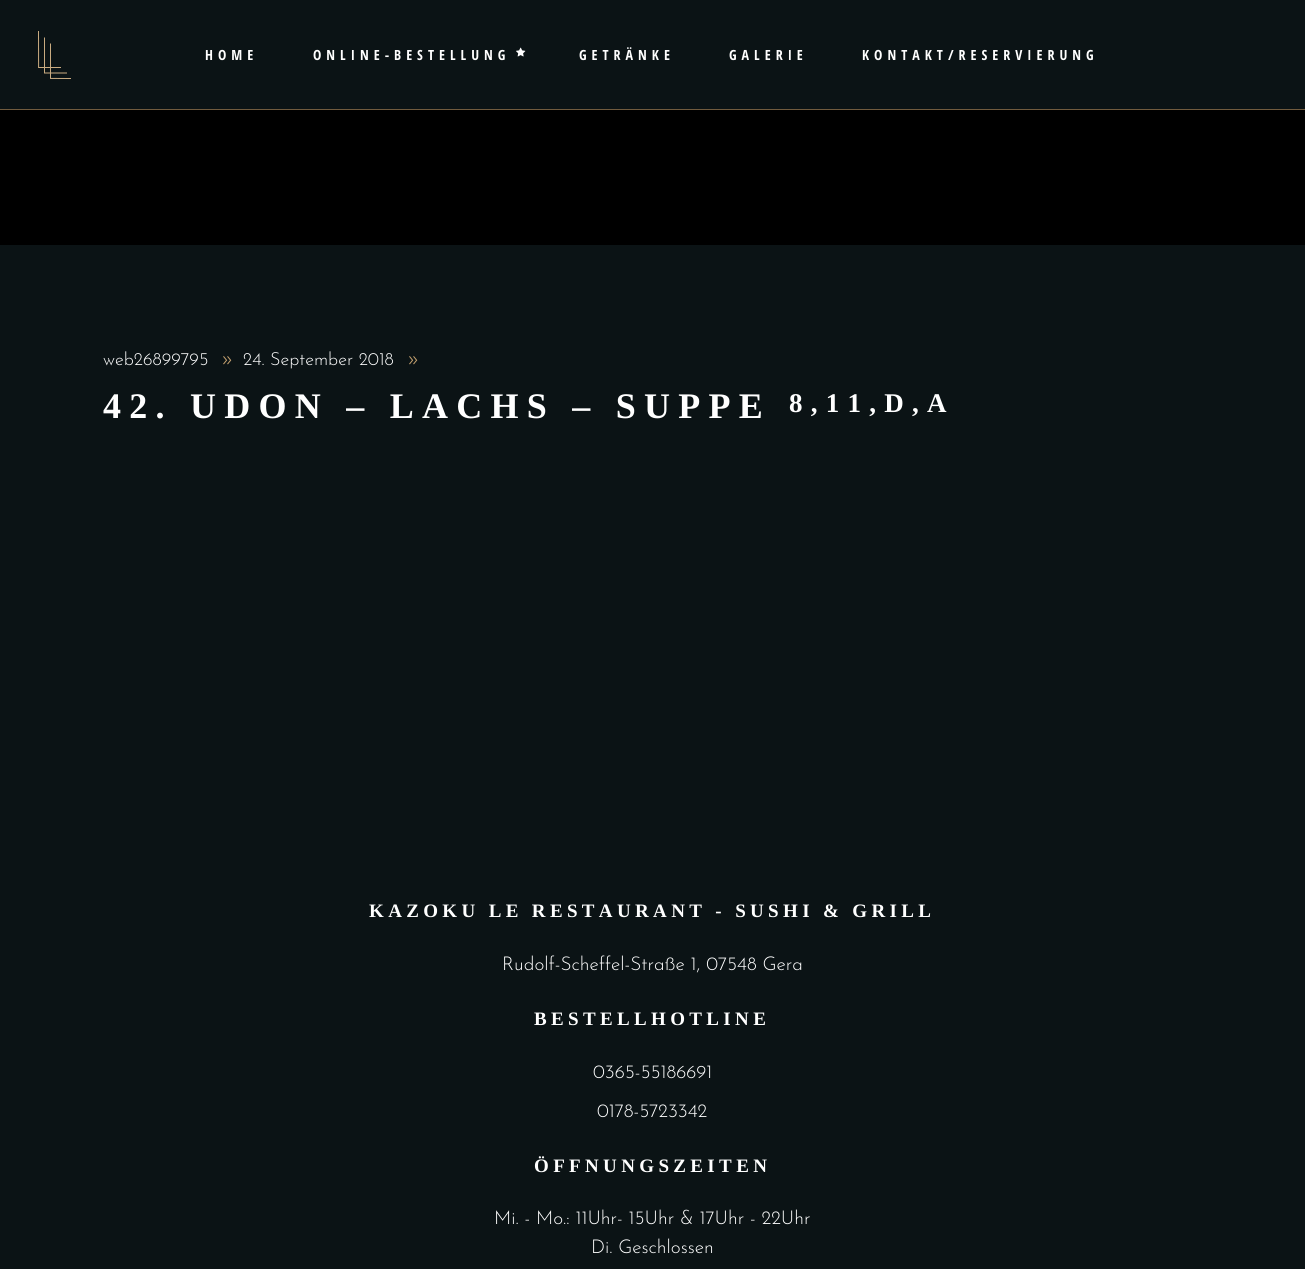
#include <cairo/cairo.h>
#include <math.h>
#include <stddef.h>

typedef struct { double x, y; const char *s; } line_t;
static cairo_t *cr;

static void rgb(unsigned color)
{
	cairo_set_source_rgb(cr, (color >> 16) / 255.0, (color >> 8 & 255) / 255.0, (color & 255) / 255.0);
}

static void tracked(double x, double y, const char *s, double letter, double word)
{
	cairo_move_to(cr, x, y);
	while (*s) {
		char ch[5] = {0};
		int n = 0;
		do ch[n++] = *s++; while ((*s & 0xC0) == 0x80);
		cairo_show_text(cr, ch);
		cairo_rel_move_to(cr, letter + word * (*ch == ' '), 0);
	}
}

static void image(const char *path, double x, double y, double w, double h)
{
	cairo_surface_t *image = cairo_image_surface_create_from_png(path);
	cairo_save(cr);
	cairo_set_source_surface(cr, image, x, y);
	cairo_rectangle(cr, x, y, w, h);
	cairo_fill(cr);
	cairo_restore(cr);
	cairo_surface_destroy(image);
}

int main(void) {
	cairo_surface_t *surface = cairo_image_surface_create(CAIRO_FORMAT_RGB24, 1305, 1269);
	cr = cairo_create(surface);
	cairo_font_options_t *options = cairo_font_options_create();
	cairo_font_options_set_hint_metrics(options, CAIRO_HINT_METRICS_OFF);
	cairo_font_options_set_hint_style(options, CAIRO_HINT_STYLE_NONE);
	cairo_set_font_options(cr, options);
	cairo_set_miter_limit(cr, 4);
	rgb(0x0b1315);
	cairo_paint(cr);
	rgb(0x715b3e);
	cairo_rectangle(cr, 0, 109, 1305, 1);
	cairo_fill(cr);
	image("img/1.png", 38, 31, 33, 48);
	image("img/2.png", 516, 47, 10, 10);
	rgb(0x000000);
	cairo_rectangle(cr, 0, 110, 1305, 135);
	cairo_fill(cr);
	image("img/3.png", 223, 356, 9, 9);
	image("img/3.png", 409, 356, 9, 9);
	cairo_select_font_face(cr, "Open Sans Condensed", CAIRO_FONT_SLANT_NORMAL, CAIRO_FONT_WEIGHT_BOLD);
	cairo_set_font_size(cr, 14);
	rgb(0xffffff);
	{
		static const line_t items[] = {
			{205, 60, "HOME"},
			{313, 60, "ONLINE-BESTELLUNG"},
			{579, 60, "GETRÄNKE"},
			{729, 60, "GALERIE"},
			{862, 60, "KONTAKT/RESERVIERUNG"},
		};
		for (size_t i = 0; i < sizeof items / sizeof *items; i++) {
			tracked(items[i].x, items[i].y, items[i].s, 5, 0);
		}
	}
	cairo_select_font_face(cr, "Josefin Sans Light", CAIRO_FONT_SLANT_NORMAL, CAIRO_FONT_WEIGHT_NORMAL);
	cairo_set_font_size(cr, 18);
	cairo_move_to(cr, 103, 365);
	cairo_show_text(cr, "web26899795");
	cairo_move_to(cr, 243, 365);
	cairo_show_text(cr, "24. September 2018");
	cairo_select_font_face(cr, "Liberation Serif", CAIRO_FONT_SLANT_NORMAL, CAIRO_FONT_WEIGHT_BOLD);
	cairo_set_font_size(cr, 36);
	tracked(103, 418, "42. UDON – LACHS – SUPPE", 8.25, 0);
	cairo_set_font_size(cr, 27);
	tracked(789, 412, "8,11,D,A", 8.25, 0);
	cairo_set_font_size(cr, 19);
	tracked(369, 917, "KAZOKU LE RESTAURANT - SUSHI & GRILL", 4.35, 0);
	cairo_select_font_face(cr, "Josefin Sans Light", CAIRO_FONT_SLANT_NORMAL, CAIRO_FONT_WEIGHT_NORMAL);
	cairo_move_to(cr, 502, 970);
	cairo_show_text(cr, "Rudolf-Scheffel-Straße 1, 07548 Gera");
	cairo_select_font_face(cr, "Liberation Serif", CAIRO_FONT_SLANT_NORMAL, CAIRO_FONT_WEIGHT_BOLD);
	tracked(534, 1025, "BESTELLHOTLINE", 4.35, 0);
	cairo_select_font_face(cr, "Josefin Sans Light", CAIRO_FONT_SLANT_NORMAL, CAIRO_FONT_WEIGHT_NORMAL);
	cairo_move_to(cr, 593, 1078);
	cairo_show_text(cr, "0365-55186691");
	cairo_move_to(cr, 597, 1117);
	cairo_show_text(cr, "0178-5723342");
	cairo_select_font_face(cr, "Liberation Serif", CAIRO_FONT_SLANT_NORMAL, CAIRO_FONT_WEIGHT_BOLD);
	tracked(534, 1172, "ÖFFNUNGSZEITEN", 4.35, 0);
	cairo_select_font_face(cr, "Josefin Sans Light", CAIRO_FONT_SLANT_NORMAL, CAIRO_FONT_WEIGHT_NORMAL);
	cairo_move_to(cr, 494, 1224);
	cairo_show_text(cr, "Mi. - Mo.: 11Uhr- 15Uhr & 17Uhr - 22Uhr");
	cairo_move_to(cr, 591, 1253);
	cairo_show_text(cr, "Di. Geschlossen");
	cairo_surface_write_to_png(surface, "page.png");
	cairo_font_options_destroy(options);
	cairo_destroy(cr);
	cairo_surface_destroy(surface);
	return 0;
}
